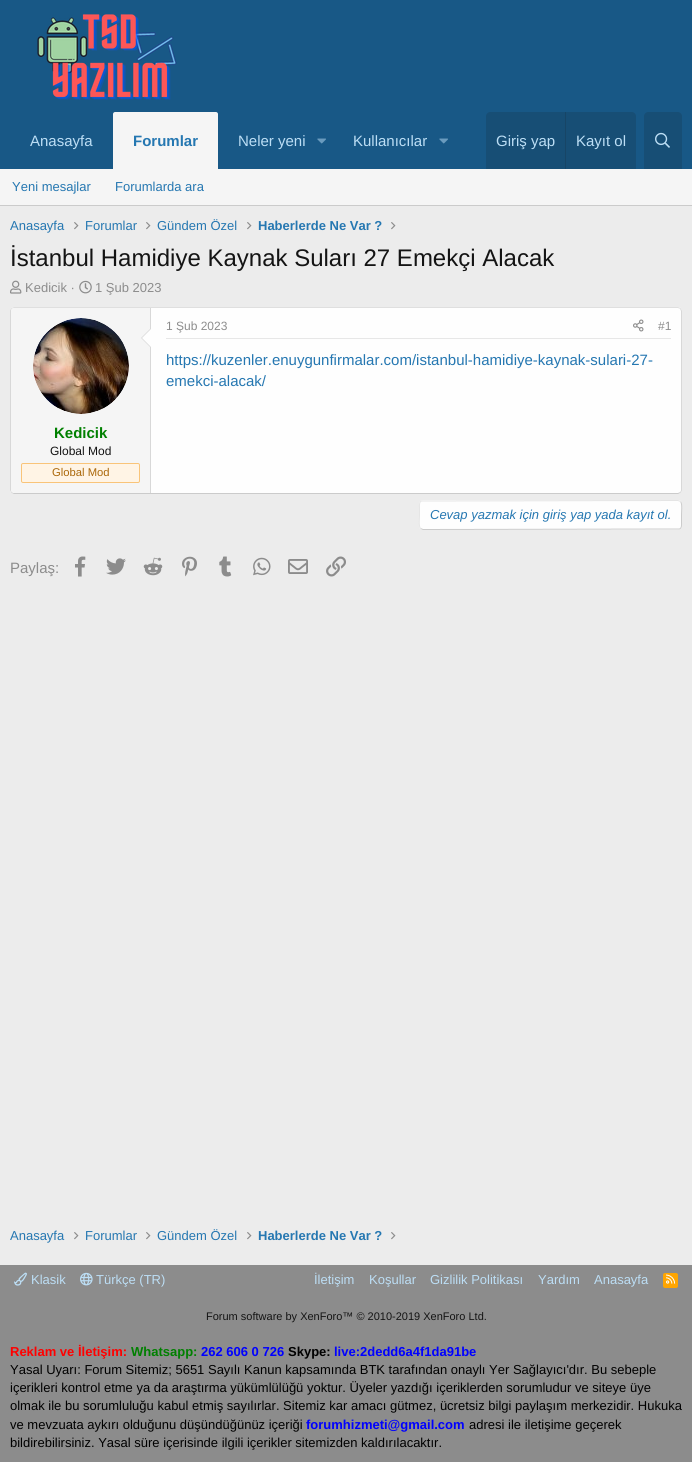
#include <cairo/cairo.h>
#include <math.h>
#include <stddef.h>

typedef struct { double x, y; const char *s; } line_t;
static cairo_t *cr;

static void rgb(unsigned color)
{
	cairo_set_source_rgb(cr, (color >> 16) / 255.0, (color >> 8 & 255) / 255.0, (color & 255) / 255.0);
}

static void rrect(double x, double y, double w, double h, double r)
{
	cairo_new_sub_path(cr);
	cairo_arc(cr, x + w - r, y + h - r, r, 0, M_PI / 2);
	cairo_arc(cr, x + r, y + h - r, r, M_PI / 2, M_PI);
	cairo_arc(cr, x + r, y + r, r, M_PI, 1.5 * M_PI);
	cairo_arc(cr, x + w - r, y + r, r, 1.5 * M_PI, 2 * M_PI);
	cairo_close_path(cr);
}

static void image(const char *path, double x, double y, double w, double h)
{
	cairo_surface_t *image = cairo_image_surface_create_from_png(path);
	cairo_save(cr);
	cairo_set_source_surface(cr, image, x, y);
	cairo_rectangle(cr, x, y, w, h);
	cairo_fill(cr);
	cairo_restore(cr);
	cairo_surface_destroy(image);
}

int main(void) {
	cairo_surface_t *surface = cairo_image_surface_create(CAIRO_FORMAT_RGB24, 692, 1462);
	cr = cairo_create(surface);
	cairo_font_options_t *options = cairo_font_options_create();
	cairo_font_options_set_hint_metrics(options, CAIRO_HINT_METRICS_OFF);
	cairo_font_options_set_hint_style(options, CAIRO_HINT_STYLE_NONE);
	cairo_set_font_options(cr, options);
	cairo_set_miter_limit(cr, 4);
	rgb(0xececec);
	cairo_paint(cr);
	rgb(0x185886);
	cairo_rectangle(cr, 0, 0, 692, 169);
	cairo_fill(cr);
	image("img/1.png", 37, 14, 140, 86);
	rgb(0xf5f5f5);
	cairo_new_path(cr);
	cairo_move_to(cr, 115, 112);
	cairo_line_to(cr, 216, 112);
	cairo_curve_to(cr, 217, 112, 218, 113, 218, 114);
	cairo_line_to(cr, 218, 169);
	cairo_line_to(cr, 113, 169);
	cairo_line_to(cr, 113, 114);
	cairo_curve_to(cr, 113, 113, 114, 112, 115, 112);
	cairo_close_path(cr);
	cairo_fill(cr);
	image("img/2.png", 317, 138, 9, 6);
	image("img/2.png", 439, 138, 9, 6);
	rgb(0x174e75);
	cairo_new_path(cr);
	cairo_move_to(cr, 490, 112);
	cairo_line_to(cr, 632, 112);
	cairo_curve_to(cr, 634, 112, 636, 114, 636, 116);
	cairo_line_to(cr, 636, 169);
	cairo_line_to(cr, 486, 169);
	cairo_line_to(cr, 486, 116);
	cairo_curve_to(cr, 486, 114, 488, 112, 490, 112);
	cairo_close_path(cr);
	cairo_fill(cr);
	rgb(0x174566);
	cairo_rectangle(cr, 565, 112, 1, 57);
	cairo_fill(cr);
	rgb(0x174e75);
	cairo_new_path(cr);
	cairo_move_to(cr, 648, 112);
	cairo_line_to(cr, 678, 112);
	cairo_curve_to(cr, 680, 112, 682, 114, 682, 116);
	cairo_line_to(cr, 682, 169);
	cairo_line_to(cr, 644, 169);
	cairo_line_to(cr, 644, 116);
	cairo_curve_to(cr, 644, 114, 646, 112, 648, 112);
	cairo_close_path(cr);
	cairo_fill(cr);
	image("img/3.png", 655, 132, 15, 16);
	rgb(0xf5f5f5);
	cairo_rectangle(cr, 0, 169, 692, 36);
	cairo_fill(cr);
	rgb(0xcbcbcb);
	cairo_rectangle(cr, 0, 205, 692, 1);
	cairo_fill(cr);
	image("img/4.png", 74, 222, 5, 8);
	image("img/4.png", 146, 222, 5, 8);
	image("img/4.png", 247, 222, 5, 8);
	image("img/4.png", 391, 222, 5, 8);
	image("img/5.png", 10, 280, 12, 14);
	image("img/6.png", 79, 280, 13, 14);
	rgb(0xfefefe);
	rrect(10, 307, 672, 187, 4);
	cairo_fill(cr);
	cairo_new_path(cr);
	cairo_move_to(cr, 11.5, 308.5);
	cairo_line_to(cr, 14, 307.5);
	cairo_line_to(cr, 678, 307.5);
	cairo_line_to(cr, 680.5, 308.5);
	rgb(0xdfdfdf);
	cairo_set_line_width(cr, 1);
	cairo_stroke(cr);
	cairo_new_path(cr);
	cairo_move_to(cr, 680.5, 308.5);
	cairo_line_to(cr, 681.5, 311);
	cairo_line_to(cr, 681.5, 490.5);
	cairo_line_to(cr, 680.5, 492.5);
	rgb(0xd8d8d8);
	cairo_stroke(cr);
	cairo_new_path(cr);
	cairo_move_to(cr, 680.5, 492.5);
	cairo_line_to(cr, 678, 493.5);
	cairo_line_to(cr, 14, 493.5);
	cairo_line_to(cr, 11.5, 492.5);
	rgb(0xcbcbcb);
	cairo_stroke(cr);
	cairo_new_path(cr);
	cairo_move_to(cr, 11.5, 492.5);
	cairo_line_to(cr, 10.5, 490);
	cairo_line_to(cr, 10.5, 310.5);
	cairo_line_to(cr, 11.5, 308.5);
	rgb(0xd8d8d8);
	cairo_stroke(cr);
	rgb(0xe7e7e7);
	cairo_rectangle(cr, 166, 338, 505, 1);
	cairo_fill(cr);
	image("img/7.png", 633, 319, 11, 13);
	rgb(0xf5f5f5);
	cairo_new_path(cr);
	cairo_move_to(cr, 14, 308);
	cairo_line_to(cr, 151, 308);
	cairo_line_to(cr, 151, 493);
	cairo_line_to(cr, 14, 493);
	cairo_curve_to(cr, 12.5, 493, 11, 491.5, 11, 490);
	cairo_line_to(cr, 11, 311);
	cairo_curve_to(cr, 11, 309.5, 12.5, 308, 14, 308);
	cairo_close_path(cr);
	cairo_fill(cr);
	rgb(0xd8d8d8);
	cairo_rectangle(cr, 150, 308, 1, 185);
	cairo_fill(cr);
	rgb(0xfefefe);
	cairo_arc(cr, 81, 366, 48, 0, 2 * M_PI);
	cairo_fill(cr);
	image("img/8.png", 33, 318, 96, 96);
	rgb(0xd8d8d8);
	cairo_new_path(cr);
	cairo_move_to(cr, 151, 328);
	cairo_line_to(cr, 151, 348);
	cairo_line_to(cr, 141, 338);
	cairo_close_path(cr);
	cairo_fill(cr);
	rgb(0xfefefe);
	cairo_new_path(cr);
	cairo_move_to(cr, 151, 329);
	cairo_line_to(cr, 151, 347);
	cairo_line_to(cr, 142, 338);
	cairo_close_path(cr);
	cairo_fill(cr);
	rgb(0xfff4e5);
	rrect(21.5, 463.5, 118, 19, 1.5);
	cairo_fill_preserve(cr);
	rgb(0xf9c479);
	cairo_stroke(cr);
	rgb(0xfefefe);
	rrect(419, 500, 263, 30, 4);
	cairo_fill(cr);
	cairo_new_path(cr);
	cairo_move_to(cr, 680.5, 501.5);
	cairo_curve_to(cr, 682.5, 503.5, 681.5, 512, 681.5, 515);
	cairo_line_to(cr, 681.5, 522.5);
	cairo_curve_to(cr, 681.5, 524.5, 682, 528, 679.5, 529);
	cairo_line_to(cr, 423, 529.5);
	cairo_line_to(cr, 420.5, 528.5);
	rgb(0xcbcbcb);
	cairo_stroke(cr);
	cairo_new_path(cr);
	cairo_move_to(cr, 420.5, 528.5);
	cairo_curve_to(cr, 418.5, 526.5, 419.5, 518, 419.5, 515);
	cairo_line_to(cr, 419.5, 507.5);
	cairo_curve_to(cr, 419.5, 505.5, 419, 502, 421.5, 501);
	cairo_line_to(cr, 678, 500.5);
	cairo_line_to(cr, 680.5, 501.5);
	rgb(0xe5e5e5);
	cairo_stroke(cr);
	image("img/9.png", 75, 556, 11, 21);
	image("img/10.png", 106, 558, 20, 17);
	image("img/11.png", 143, 557, 20, 19);
	image("img/12.png", 182, 556, 15, 21);
	image("img/13.png", 219, 556, 13, 21);
	image("img/14.png", 253, 557, 18, 19);
	image("img/15.png", 288, 559, 20, 15);
	image("img/16.png", 326, 556, 20, 21);
	image("img/4.png", 74, 1232, 5, 8);
	image("img/4.png", 146, 1232, 5, 8);
	image("img/4.png", 247, 1232, 5, 8);
	image("img/4.png", 391, 1232, 5, 8);
	rgb(0x8c8c8c);
	cairo_rectangle(cr, 0, 1265, 692, 197);
	cairo_fill(cr);
	image("img/17.png", 14, 1272, 13, 14);
	image("img/18.png", 80, 1272, 13, 14);
	rgb(0xffa500);
	rrect(663, 1273, 15, 15, 2);
	cairo_fill(cr);
	image("img/19.png", 666, 1274, 10, 10);
	cairo_select_font_face(cr, "Liberation Sans", CAIRO_FONT_SLANT_NORMAL, CAIRO_FONT_WEIGHT_NORMAL);
	cairo_set_font_size(cr, 15);
	rgb(0xbcdef5);
	cairo_move_to(cr, 30, 146);
	cairo_show_text(cr, "Anasayfa");
	cairo_select_font_face(cr, "Liberation Sans", CAIRO_FONT_SLANT_NORMAL, CAIRO_FONT_WEIGHT_BOLD);
	rgb(0x2577b1);
	cairo_move_to(cr, 133, 146);
	cairo_show_text(cr, "Forumlar");
	cairo_select_font_face(cr, "Liberation Sans", CAIRO_FONT_SLANT_NORMAL, CAIRO_FONT_WEIGHT_NORMAL);
	rgb(0xbcdef5);
	{
		static const line_t items[] = {
			{238, 146, "Neler yeni"},
			{353, 146, "Kullanıcılar"},
			{496, 146, "Giriş yap"},
			{576, 146, "Kayıt ol"},
		};
		for (size_t i = 0; i < sizeof items / sizeof *items; i++) {
			cairo_move_to(cr, items[i].x, items[i].y);
			cairo_show_text(cr, items[i].s);
		}
	}
	cairo_set_font_size(cr, 13);
	rgb(0x2577b1);
	{
		static const line_t items[] = {
			{12, 191, "Yeni mesajlar"},
			{115, 191, "Forumlarda ara"},
			{10, 230, "Anasayfa"},
			{85, 230, "Forumlar"},
			{157, 230, "Gündem Özel"},
		};
		for (size_t i = 0; i < sizeof items / sizeof *items; i++) {
			cairo_move_to(cr, items[i].x, items[i].y);
			cairo_show_text(cr, items[i].s);
		}
	}
	cairo_select_font_face(cr, "Liberation Sans", CAIRO_FONT_SLANT_NORMAL, CAIRO_FONT_WEIGHT_BOLD);
	cairo_move_to(cr, 258, 230);
	cairo_show_text(cr, "Haberlerde Ne Var ?");
	cairo_select_font_face(cr, "Liberation Sans", CAIRO_FONT_SLANT_NORMAL, CAIRO_FONT_WEIGHT_NORMAL);
	cairo_set_font_size(cr, 24);
	rgb(0x141414);
	cairo_move_to(cr, 10, 266);
	cairo_show_text(cr, "İstanbul Hamidiye Kaynak Suları 27 Emekçi Alacak");
	cairo_set_font_size(cr, 13);
	rgb(0x8c8c8c);
	cairo_move_to(cr, 25, 292);
	cairo_show_text(cr, "Kedicik ·");
	cairo_move_to(cr, 95, 292);
	cairo_show_text(cr, "1 Şub 2023");
	cairo_set_font_size(cr, 12);
	cairo_move_to(cr, 166, 330);
	cairo_show_text(cr, "1 Şub 2023");
	cairo_move_to(cr, 658, 330);
	cairo_show_text(cr, "#1");
	cairo_set_font_size(cr, 15);
	rgb(0x2577b1);
	cairo_move_to(cr, 166, 365);
	cairo_show_text(cr, "https://kuzenler.enuygunfirmalar.com/istanbul-hamidiye-kaynak-sulari-27-");
	cairo_move_to(cr, 166, 386);
	cairo_show_text(cr, "emekci-alacak/");
	cairo_select_font_face(cr, "Liberation Sans", CAIRO_FONT_SLANT_NORMAL, CAIRO_FONT_WEIGHT_BOLD);
	rgb(0x008000);
	cairo_move_to(cr, 54, 438);
	cairo_show_text(cr, "Kedicik");
	cairo_select_font_face(cr, "Liberation Sans", CAIRO_FONT_SLANT_NORMAL, CAIRO_FONT_WEIGHT_NORMAL);
	cairo_set_font_size(cr, 12);
	rgb(0x141414);
	cairo_move_to(cr, 50, 455);
	cairo_show_text(cr, "Global Mod");
	cairo_set_font_size(cr, 11.25);
	rgb(0xaa6709);
	cairo_move_to(cr, 52, 476);
	cairo_show_text(cr, "Global Mod");
	cairo_select_font_face(cr, "Liberation Sans", CAIRO_FONT_SLANT_ITALIC, CAIRO_FONT_WEIGHT_NORMAL);
	cairo_set_font_size(cr, 13);
	rgb(0x2577b1);
	cairo_move_to(cr, 430, 519);
	cairo_show_text(cr, "Cevap yazmak için giriş yap yada kayıt ol.");
	cairo_select_font_face(cr, "Liberation Sans", CAIRO_FONT_SLANT_NORMAL, CAIRO_FONT_WEIGHT_NORMAL);
	cairo_set_font_size(cr, 15);
	rgb(0x8c8c8c);
	cairo_move_to(cr, 10, 573);
	cairo_show_text(cr, "Paylaş:");
	cairo_set_font_size(cr, 13);
	rgb(0x2577b1);
	{
		static const line_t items[] = {
			{10, 1240, "Anasayfa"},
			{85, 1240, "Forumlar"},
			{157, 1240, "Gündem Özel"},
		};
		for (size_t i = 0; i < sizeof items / sizeof *items; i++) {
			cairo_move_to(cr, items[i].x, items[i].y);
			cairo_show_text(cr, items[i].s);
		}
	}
	cairo_select_font_face(cr, "Liberation Sans", CAIRO_FONT_SLANT_NORMAL, CAIRO_FONT_WEIGHT_BOLD);
	cairo_move_to(cr, 258, 1240);
	cairo_show_text(cr, "Haberlerde Ne Var ?");
	cairo_select_font_face(cr, "Liberation Sans", CAIRO_FONT_SLANT_NORMAL, CAIRO_FONT_WEIGHT_NORMAL);
	rgb(0xbcdef5);
	{
		static const line_t items[] = {
			{31, 1284, "Klasik"},
			{96, 1284, "Türkçe (TR)"},
			{314, 1284, "İletişim"},
			{369, 1284, "Koşullar"},
			{430, 1284, "Gizlilik Politikası"},
			{538, 1284, "Yardım"},
			{594, 1284, "Anasayfa"},
		};
		for (size_t i = 0; i < sizeof items / sizeof *items; i++) {
			cairo_move_to(cr, items[i].x, items[i].y);
			cairo_show_text(cr, items[i].s);
		}
	}
	cairo_set_font_size(cr, 11);
	rgb(0x141414);
	cairo_move_to(cr, 206, 1320);
	cairo_show_text(cr, "Forum software by XenForo™ © 2010-2019 XenForo Ltd.");
	cairo_select_font_face(cr, "Liberation Sans", CAIRO_FONT_SLANT_NORMAL, CAIRO_FONT_WEIGHT_BOLD);
	cairo_set_font_size(cr, 13);
	rgb(0xff0000);
	cairo_move_to(cr, 10, 1356);
	cairo_show_text(cr, "Reklam ve İletişim:");
	rgb(0x008000);
	cairo_move_to(cr, 131, 1356);
	cairo_show_text(cr, "Whatsapp:");
	rgb(0x0000ff);
	cairo_move_to(cr, 201, 1356);
	cairo_show_text(cr, "262 606 0 726");
	rgb(0x000000);
	cairo_move_to(cr, 288, 1356);
	cairo_show_text(cr, "Skype:");
	rgb(0x0000ff);
	cairo_move_to(cr, 334, 1356);
	cairo_show_text(cr, "live:2dedd6a4f1da91be");
	cairo_select_font_face(cr, "Liberation Sans", CAIRO_FONT_SLANT_NORMAL, CAIRO_FONT_WEIGHT_NORMAL);
	rgb(0x000000);
	{
		static const line_t items[] = {
			{10, 1374, "Yasal Uyarı: Forum Sitemiz; 5651 Sayılı Kanun kapsamında BTK tarafından onaylı Yer Sağlayıcı'dır. Bu sebeple"},
			{10, 1392, "içerikleri kontrol etme ya da araştırma yükümlülüğü yoktur. Üyeler yazdığı içeriklerden sorumludur ve siteye üye"},
			{10, 1410, "olmak ile bu sorumluluğu kabul etmiş sayılırlar. Sitemiz kar amacı gütmez, ücretsiz bilgi paylaşım merkezidir. Hukuka"},
			{10, 1429, "ve mevzuata aykırı olduğunu düşündüğünüz içeriği"},
		};
		for (size_t i = 0; i < sizeof items / sizeof *items; i++) {
			cairo_move_to(cr, items[i].x, items[i].y);
			cairo_show_text(cr, items[i].s);
		}
	}
	cairo_select_font_face(cr, "Liberation Sans", CAIRO_FONT_SLANT_NORMAL, CAIRO_FONT_WEIGHT_BOLD);
	rgb(0x0000ff);
	cairo_move_to(cr, 306, 1429);
	cairo_show_text(cr, "forumhizmeti@gmail.com");
	cairo_select_font_face(cr, "Liberation Sans", CAIRO_FONT_SLANT_NORMAL, CAIRO_FONT_WEIGHT_NORMAL);
	rgb(0x000000);
	cairo_move_to(cr, 469, 1429);
	cairo_show_text(cr, "adresi ile iletişime geçerek");
	cairo_move_to(cr, 10, 1447);
	cairo_show_text(cr, "bildirebilirsiniz. Yasal süre içerisinde ilgili içerikler sitemizden kaldırılacaktır.");
	cairo_surface_write_to_png(surface, "page.png");
	cairo_font_options_destroy(options);
	cairo_destroy(cr);
	cairo_surface_destroy(surface);
	return 0;
}
